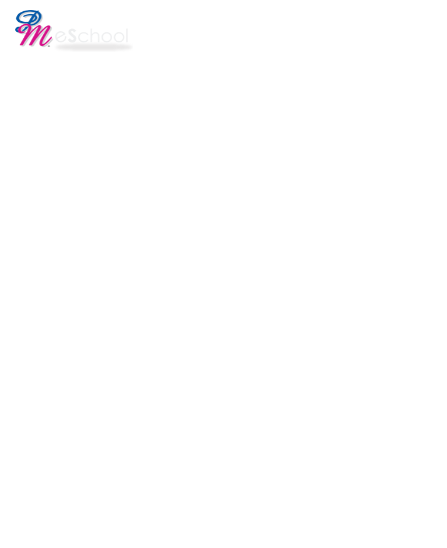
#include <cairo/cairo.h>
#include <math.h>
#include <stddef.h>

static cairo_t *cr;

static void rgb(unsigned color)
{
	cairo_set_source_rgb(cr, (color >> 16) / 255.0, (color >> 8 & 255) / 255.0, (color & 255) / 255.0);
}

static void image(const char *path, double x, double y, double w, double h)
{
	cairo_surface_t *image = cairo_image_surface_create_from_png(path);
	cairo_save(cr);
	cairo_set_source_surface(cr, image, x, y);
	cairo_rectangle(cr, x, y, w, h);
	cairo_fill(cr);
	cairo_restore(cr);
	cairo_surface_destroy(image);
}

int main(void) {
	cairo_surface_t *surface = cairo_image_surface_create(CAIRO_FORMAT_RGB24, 447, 548);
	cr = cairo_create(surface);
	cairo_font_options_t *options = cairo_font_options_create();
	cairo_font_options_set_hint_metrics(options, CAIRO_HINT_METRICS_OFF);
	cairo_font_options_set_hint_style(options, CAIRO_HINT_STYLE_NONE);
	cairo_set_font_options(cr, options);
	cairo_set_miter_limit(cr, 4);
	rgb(0xffffff);
	cairo_paint(cr);
	image("img/1.png", 15, 10, 118, 42);
	cairo_surface_write_to_png(surface, "page.png");
	cairo_font_options_destroy(options);
	cairo_destroy(cr);
	cairo_surface_destroy(surface);
	return 0;
}
